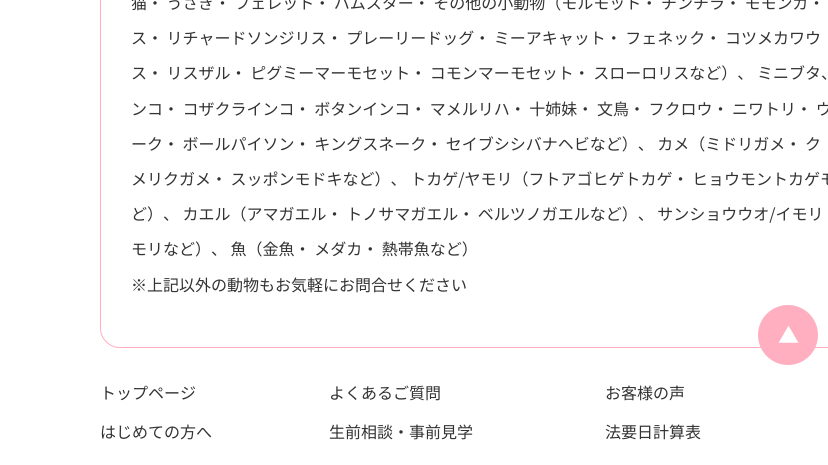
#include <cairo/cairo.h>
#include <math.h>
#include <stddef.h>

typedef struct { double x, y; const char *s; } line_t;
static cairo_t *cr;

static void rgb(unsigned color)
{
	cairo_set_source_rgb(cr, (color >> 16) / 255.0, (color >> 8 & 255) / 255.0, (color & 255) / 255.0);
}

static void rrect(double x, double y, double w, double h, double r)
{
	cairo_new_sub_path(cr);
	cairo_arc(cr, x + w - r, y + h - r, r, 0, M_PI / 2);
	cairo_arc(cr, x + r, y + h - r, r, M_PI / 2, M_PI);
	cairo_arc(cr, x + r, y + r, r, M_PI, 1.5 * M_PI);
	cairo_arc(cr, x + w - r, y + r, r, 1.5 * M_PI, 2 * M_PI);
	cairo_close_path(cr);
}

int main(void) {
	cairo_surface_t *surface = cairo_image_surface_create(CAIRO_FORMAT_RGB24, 828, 465);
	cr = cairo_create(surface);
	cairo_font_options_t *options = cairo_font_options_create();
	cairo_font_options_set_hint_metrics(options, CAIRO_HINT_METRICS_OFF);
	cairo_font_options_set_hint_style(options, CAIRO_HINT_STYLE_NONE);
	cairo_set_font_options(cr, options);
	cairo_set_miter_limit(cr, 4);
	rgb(0xffffff);
	cairo_paint(cr);
	rrect(100.5, -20.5, 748, 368, 19.5);
	rgb(0xffafc0);
	cairo_set_line_width(cr, 1);
	cairo_stroke(cr);
	cairo_arc(cr, 788, 335, 30, 0, 2 * M_PI);
	cairo_fill(cr);
	cairo_select_font_face(cr, "Noto Sans JP", CAIRO_FONT_SLANT_NORMAL, CAIRO_FONT_WEIGHT_NORMAL);
	cairo_set_font_size(cr, 16);
	rgb(0x333333);
	{
		static const line_t items[] = {
			{131, 9, "猫・ うさぎ・ フェレット・ ハムスター・ その他の小動物（モルモット・ チンチラ・ モモンガ・"},
			{131, 44, "ス・ リチャードソンジリス・ プレーリードッグ・ ミーアキャット・ フェネック・ コツメカワウ"},
			{131, 79, "ス・ リスザル・ ピグミーマーモセット・ コモンマーモセット・ スローロリスなど）、 ミニブタ、"},
			{131, 115, "ンコ・ コザクラインコ・ ボタンインコ・ マメルリハ・ 十姉妹・ 文鳥・ フクロウ・ ニワトリ・ ウ"},
			{131, 150, "ーク・ ボールパイソン・ キングスネーク・ セイブシシバナヘビなど）、 カメ（ミドリガメ・ ク"},
			{131, 185, "メリクガメ・ スッポンモドキなど）、 トカゲ/ヤモリ（フトアゴヒゲトカゲ・ ヒョウモントカゲモ"},
			{131, 220, "ど）、 カエル（アマガエル・ トノサマガエル・ ベルツノガエルなど）、 サンショウウオ/イモリ"},
			{131, 255, "モリなど）、 魚（金魚・ メダカ・ 熱帯魚など）"},
			{131, 291, "※上記以外の動物もお気軽にお問合せください"},
			{100, 399, "トップページ"},
			{329, 399, "よくあるご質問"},
			{605, 399, "お客様の声"},
			{100, 438, "はじめての方へ"},
			{329, 438, "生前相談・事前見学"},
			{605, 438, "法要日計算表"},
		};
		for (size_t i = 0; i < sizeof items / sizeof *items; i++) {
			cairo_move_to(cr, items[i].x, items[i].y);
			cairo_show_text(cr, items[i].s);
		}
	}
	cairo_set_font_size(cr, 21);
	rgb(0xffffff);
	cairo_move_to(cr, 778, 343);
	cairo_show_text(cr, "▲");
	cairo_surface_write_to_png(surface, "page.png");
	cairo_font_options_destroy(options);
	cairo_destroy(cr);
	cairo_surface_destroy(surface);
	return 0;
}
